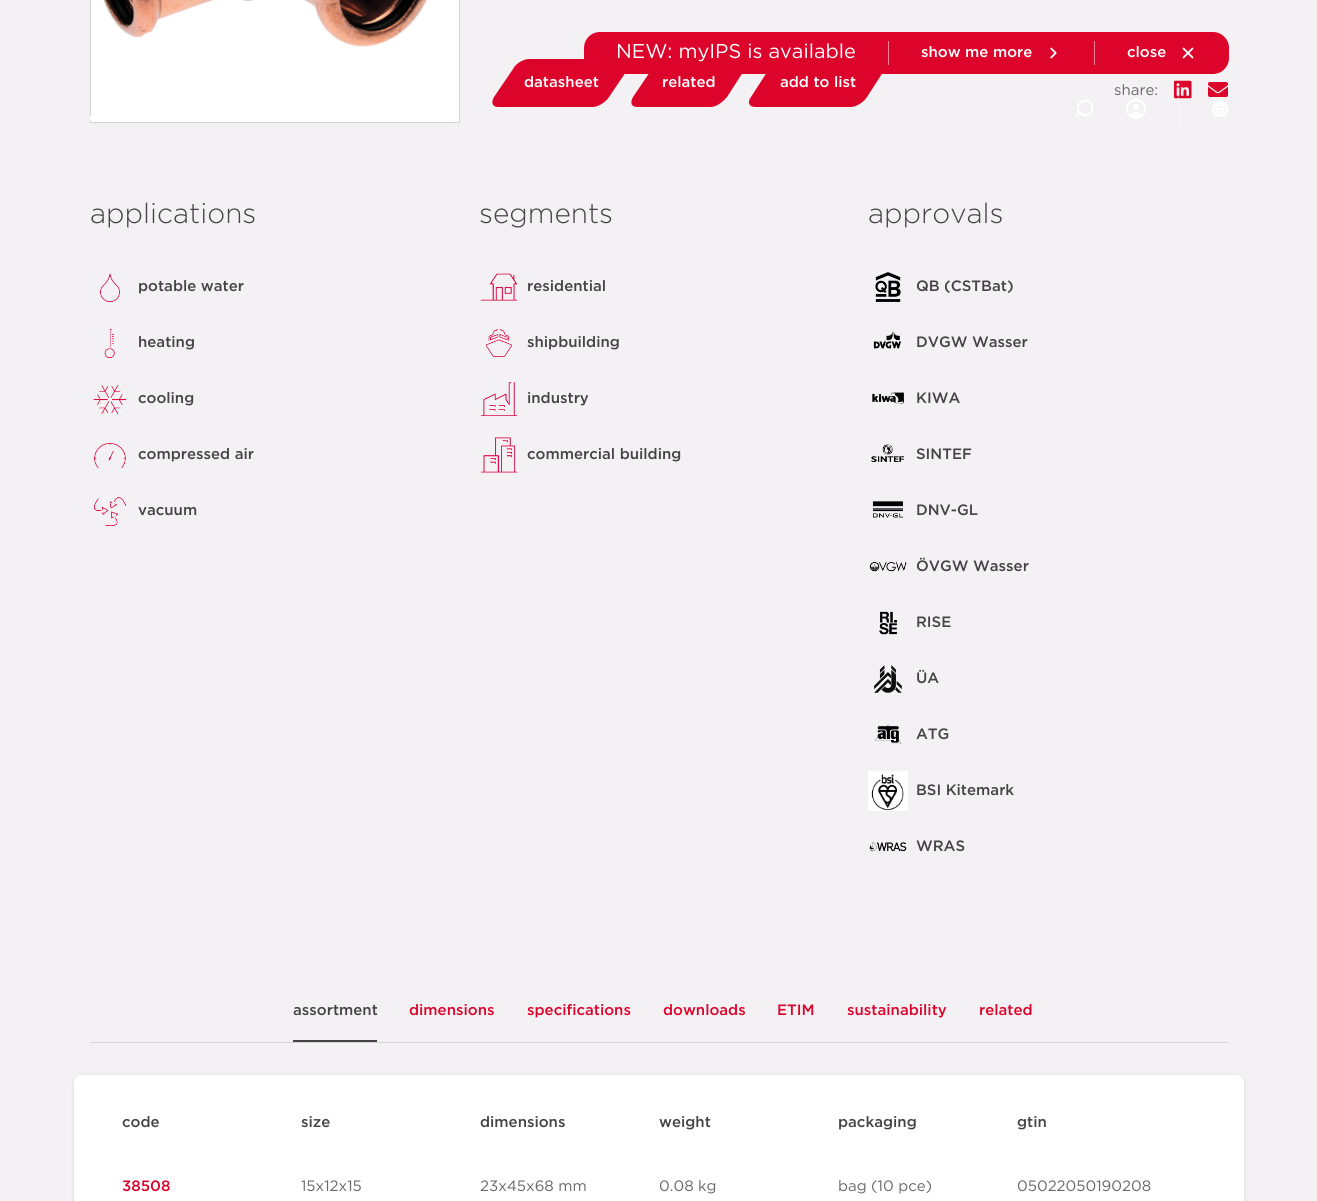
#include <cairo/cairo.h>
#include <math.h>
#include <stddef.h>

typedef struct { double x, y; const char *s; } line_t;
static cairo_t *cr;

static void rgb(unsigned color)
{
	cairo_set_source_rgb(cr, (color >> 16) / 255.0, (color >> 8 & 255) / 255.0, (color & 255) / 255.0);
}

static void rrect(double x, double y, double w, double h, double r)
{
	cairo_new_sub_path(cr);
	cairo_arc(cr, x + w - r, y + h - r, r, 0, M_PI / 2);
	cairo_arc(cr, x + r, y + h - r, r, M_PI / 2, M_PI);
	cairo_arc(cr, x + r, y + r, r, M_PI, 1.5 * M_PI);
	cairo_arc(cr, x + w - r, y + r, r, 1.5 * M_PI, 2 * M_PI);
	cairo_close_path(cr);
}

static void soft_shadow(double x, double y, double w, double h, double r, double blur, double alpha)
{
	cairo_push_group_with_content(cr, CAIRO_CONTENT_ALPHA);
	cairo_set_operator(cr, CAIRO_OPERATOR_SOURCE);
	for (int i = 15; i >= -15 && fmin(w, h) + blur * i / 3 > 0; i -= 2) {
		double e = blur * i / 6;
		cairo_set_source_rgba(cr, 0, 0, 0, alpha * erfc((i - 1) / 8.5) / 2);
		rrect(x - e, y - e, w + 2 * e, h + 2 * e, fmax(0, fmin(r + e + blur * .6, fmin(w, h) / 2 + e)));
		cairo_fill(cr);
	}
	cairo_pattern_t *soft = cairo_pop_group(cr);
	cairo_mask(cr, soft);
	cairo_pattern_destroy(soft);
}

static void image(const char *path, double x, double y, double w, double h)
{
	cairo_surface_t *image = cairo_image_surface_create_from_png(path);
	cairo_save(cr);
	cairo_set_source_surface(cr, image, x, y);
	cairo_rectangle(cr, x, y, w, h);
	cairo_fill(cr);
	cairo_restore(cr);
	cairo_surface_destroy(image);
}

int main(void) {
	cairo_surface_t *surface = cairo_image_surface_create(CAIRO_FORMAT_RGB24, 1317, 1201);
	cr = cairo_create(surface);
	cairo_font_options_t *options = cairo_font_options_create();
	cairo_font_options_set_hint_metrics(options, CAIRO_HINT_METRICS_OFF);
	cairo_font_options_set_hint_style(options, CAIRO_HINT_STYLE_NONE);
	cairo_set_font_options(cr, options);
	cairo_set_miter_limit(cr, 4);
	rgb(0xf3f1f4);
	cairo_paint(cr);
	rgb(0xffffff);
	cairo_rectangle(cr, 90.5, -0.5, 369, 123);
	cairo_fill_preserve(cr);
	rgb(0xd4d4d4);
	cairo_set_line_width(cr, 1);
	cairo_stroke(cr);
	image("img/6.png", 103, 0, 324, 47);
	image("img/1.png", 89, 32, 63, 89);
	cairo_new_path(cr);
	cairo_move_to(cr, 1090.5, 102.5);
	cairo_curve_to(cr, 1083.5, 96, 1073.5, 106, 1080, 112.5);
	cairo_line_to(cr, 1076, 116.5);
	cairo_line_to(cr, 1080, 113);
	cairo_curve_to(cr, 1087, 119.5, 1097, 109.5, 1090.5, 102.5);
	cairo_close_path(cr);
	rgb(0xffffff);
	cairo_set_line_width(cr, 1.9);
	cairo_stroke(cr);
	image("img/2.png", 1126, 99, 20, 20);
	image("img/7.png", 1174, 80, 18, 19);
	cairo_set_source_rgba(cr, 1, 1, 1, 0.3);
	cairo_rectangle(cr, 1178, 91, 1, 40);
	cairo_fill(cr);
	image("img/3.png", 1212, 101, 16, 16);
	rgb(0xdd042b);
	cairo_new_path(cr);
	cairo_move_to(cr, 529, 59);
	cairo_line_to(cr, 624, 59);
	cairo_curve_to(cr, 630, 59, 631, 63, 628, 69);
	cairo_line_to(cr, 609, 97);
	cairo_curve_to(cr, 606, 102, 598, 107, 593, 107);
	cairo_line_to(cr, 498, 107);
	cairo_curve_to(cr, 492, 107, 491, 102, 494, 97);
	cairo_line_to(cr, 513, 69);
	cairo_curve_to(cr, 516, 63, 524, 59, 529, 59);
	cairo_close_path(cr);
	cairo_fill(cr);
	cairo_new_path(cr);
	cairo_move_to(cr, 668, 59);
	cairo_line_to(cr, 742, 59);
	cairo_curve_to(cr, 747, 59, 749, 63, 745, 69);
	cairo_line_to(cr, 727, 97);
	cairo_curve_to(cr, 723, 102, 716, 107, 711, 107);
	cairo_line_to(cr, 637, 107);
	cairo_curve_to(cr, 631, 107, 630, 102, 633, 97);
	cairo_line_to(cr, 652, 69);
	cairo_curve_to(cr, 655, 63, 663, 59, 668, 59);
	cairo_close_path(cr);
	cairo_fill(cr);
	cairo_new_path(cr);
	cairo_move_to(cr, 786, 59);
	cairo_line_to(cr, 882, 59);
	cairo_curve_to(cr, 887, 59, 889, 63, 885, 69);
	cairo_line_to(cr, 867, 97);
	cairo_curve_to(cr, 864, 102, 856, 107, 851, 107);
	cairo_line_to(cr, 755, 107);
	cairo_curve_to(cr, 749, 107, 747, 102, 751, 97);
	cairo_line_to(cr, 769, 69);
	cairo_curve_to(cr, 773, 63, 780, 59, 786, 59);
	cairo_close_path(cr);
	cairo_fill(cr);
	rrect(584, 32, 645, 42, 16);
	cairo_fill(cr);
	rgb(0xee8295);
	cairo_rectangle(cr, 888, 41, 1, 24);
	cairo_fill(cr);
	image("img/4.png", 1050, 47, 7, 12);
	cairo_rectangle(cr, 1094, 41, 1, 24);
	cairo_fill(cr);
	image("img/5.png", 1182, 47, 12, 12);
	image("img/8.png", 1208, 82, 20, 15);
	image("img/9.png", 100, 273, 20, 29);
	image("img/10.png", 104, 329, 11, 29);
	image("img/11.png", 93, 385, 34, 29);
	image("img/12.png", 94, 443, 32, 26);
	image("img/13.png", 94, 497, 33, 29);
	image("img/14.png", 480, 273, 38, 28);
	image("img/15.png", 486, 329, 26, 28);
	image("img/16.png", 480, 382, 38, 34);
	image("img/17.png", 480, 437, 38, 36);
	image("img/18.png", 875, 272, 26, 30);
	image("img/19.png", 873, 331, 28, 18);
	image("img/20.png", 872, 392, 32, 12);
	image("img/21.png", 871, 444, 33, 18);
	image("img/22.png", 872, 501, 31, 17);
	image("img/23.png", 869, 562, 38, 10);
	image("img/24.png", 879, 611, 18, 24);
	image("img/25.png", 874, 665, 28, 28);
	image("img/26.png", 875, 724, 27, 20);
	image("img/27.png", 868, 771, 40, 40);
	image("img/28.png", 869, 842, 38, 10);
	rgb(0xd4d4d4);
	cairo_rectangle(cr, 90, 1042, 1138, 1);
	cairo_fill(cr);
	rgb(0x444444);
	cairo_rectangle(cr, 293, 1040, 84, 2);
	cairo_fill(cr);
	rgb(0x000000);
	soft_shadow(74, 1076, 1170, 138, 8, 1.5, 0.16);
	rgb(0xffffff);
	rrect(74, 1075, 1170, 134, 8);
	cairo_fill(cr);
	cairo_select_font_face(cr, "Gotham", CAIRO_FONT_SLANT_NORMAL, CAIRO_FONT_WEIGHT_NORMAL);
	cairo_set_font_size(cr, 20);
	cairo_move_to(cr, 616, 58);
	cairo_show_text(cr, "NEW: myIPS is available");
	cairo_select_font_face(cr, "Gotham Medium", CAIRO_FONT_SLANT_NORMAL, CAIRO_FONT_WEIGHT_NORMAL);
	cairo_set_font_size(cr, 15);
	{
		static const line_t items[] = {
			{921, 57, "show me more"},
			{1127, 57, "close"},
			{524, 87, "datasheet"},
			{662, 87, "related"},
			{780, 87, "add to list"},
		};
		for (size_t i = 0; i < sizeof items / sizeof *items; i++) {
			cairo_move_to(cr, items[i].x, items[i].y);
			cairo_show_text(cr, items[i].s);
		}
	}
	cairo_select_font_face(cr, "Gotham", CAIRO_FONT_SLANT_NORMAL, CAIRO_FONT_WEIGHT_NORMAL);
	rgb(0x686868);
	cairo_move_to(cr, 1114, 95);
	cairo_show_text(cr, "share:");
	cairo_select_font_face(cr, "Gotham Light", CAIRO_FONT_SLANT_NORMAL, CAIRO_FONT_WEIGHT_NORMAL);
	cairo_set_font_size(cr, 28);
	rgb(0x444444);
	cairo_move_to(cr, 90, 223);
	cairo_show_text(cr, "applications");
	cairo_select_font_face(cr, "Gotham Medium", CAIRO_FONT_SLANT_NORMAL, CAIRO_FONT_WEIGHT_NORMAL);
	cairo_set_font_size(cr, 15);
	{
		static const line_t items[] = {
			{138, 291, "potable water"},
			{138, 347, "heating"},
			{138, 403, "cooling"},
			{138, 459, "compressed air"},
			{138, 515, "vacuum"},
		};
		for (size_t i = 0; i < sizeof items / sizeof *items; i++) {
			cairo_move_to(cr, items[i].x, items[i].y);
			cairo_show_text(cr, items[i].s);
		}
	}
	cairo_select_font_face(cr, "Gotham Light", CAIRO_FONT_SLANT_NORMAL, CAIRO_FONT_WEIGHT_NORMAL);
	cairo_set_font_size(cr, 28);
	cairo_move_to(cr, 479, 223);
	cairo_show_text(cr, "segments");
	cairo_select_font_face(cr, "Gotham Medium", CAIRO_FONT_SLANT_NORMAL, CAIRO_FONT_WEIGHT_NORMAL);
	cairo_set_font_size(cr, 15);
	{
		static const line_t items[] = {
			{527, 291, "residential"},
			{527, 347, "shipbuilding"},
			{527, 403, "industry"},
			{527, 459, "commercial building"},
		};
		for (size_t i = 0; i < sizeof items / sizeof *items; i++) {
			cairo_move_to(cr, items[i].x, items[i].y);
			cairo_show_text(cr, items[i].s);
		}
	}
	cairo_select_font_face(cr, "Gotham Light", CAIRO_FONT_SLANT_NORMAL, CAIRO_FONT_WEIGHT_NORMAL);
	cairo_set_font_size(cr, 28);
	cairo_move_to(cr, 868, 223);
	cairo_show_text(cr, "approvals");
	cairo_select_font_face(cr, "Gotham Medium", CAIRO_FONT_SLANT_NORMAL, CAIRO_FONT_WEIGHT_NORMAL);
	cairo_set_font_size(cr, 15);
	{
		static const line_t items[] = {
			{916, 291, "QB (CSTBat)"},
			{916, 347, "DVGW Wasser"},
			{916, 403, "KIWA"},
			{916, 459, "SINTEF"},
			{916, 515, "DNV-GL"},
			{916, 571, "ÖVGW Wasser"},
			{916, 627, "RISE"},
			{916, 683, "ÜA"},
			{916, 739, "ATG"},
			{916, 795, "BSI Kitemark"},
			{916, 851, "WRAS"},
			{293, 1015, "assortment"},
		};
		for (size_t i = 0; i < sizeof items / sizeof *items; i++) {
			cairo_move_to(cr, items[i].x, items[i].y);
			cairo_show_text(cr, items[i].s);
		}
	}
	rgb(0xdd042b);
	{
		static const line_t items[] = {
			{409, 1015, "dimensions"},
			{527, 1015, "specifications"},
			{663, 1015, "downloads"},
			{777, 1015, "ETIM"},
			{847, 1015, "sustainability"},
			{979, 1015, "related"},
		};
		for (size_t i = 0; i < sizeof items / sizeof *items; i++) {
			cairo_move_to(cr, items[i].x, items[i].y);
			cairo_show_text(cr, items[i].s);
		}
	}
	rgb(0x444444);
	{
		static const line_t items[] = {
			{122, 1127, "code"},
			{301, 1127, "size"},
			{480, 1127, "dimensions"},
			{659, 1127, "weight"},
			{838, 1127, "packaging"},
			{1017, 1127, "gtin"},
		};
		for (size_t i = 0; i < sizeof items / sizeof *items; i++) {
			cairo_move_to(cr, items[i].x, items[i].y);
			cairo_show_text(cr, items[i].s);
		}
	}
	rgb(0xdd042b);
	cairo_move_to(cr, 122, 1191);
	cairo_show_text(cr, "38508");
	cairo_select_font_face(cr, "Gotham", CAIRO_FONT_SLANT_NORMAL, CAIRO_FONT_WEIGHT_NORMAL);
	rgb(0x686868);
	{
		static const line_t items[] = {
			{301, 1191, "15x12x15"},
			{480, 1191, "23x45x68 mm"},
			{659, 1191, "0.08 kg"},
			{838, 1191, "bag (10 pce)"},
			{1017, 1191, "05022050190208"},
		};
		for (size_t i = 0; i < sizeof items / sizeof *items; i++) {
			cairo_move_to(cr, items[i].x, items[i].y);
			cairo_show_text(cr, items[i].s);
		}
	}
	cairo_surface_write_to_png(surface, "page.png");
	cairo_font_options_destroy(options);
	cairo_destroy(cr);
	cairo_surface_destroy(surface);
	return 0;
}
